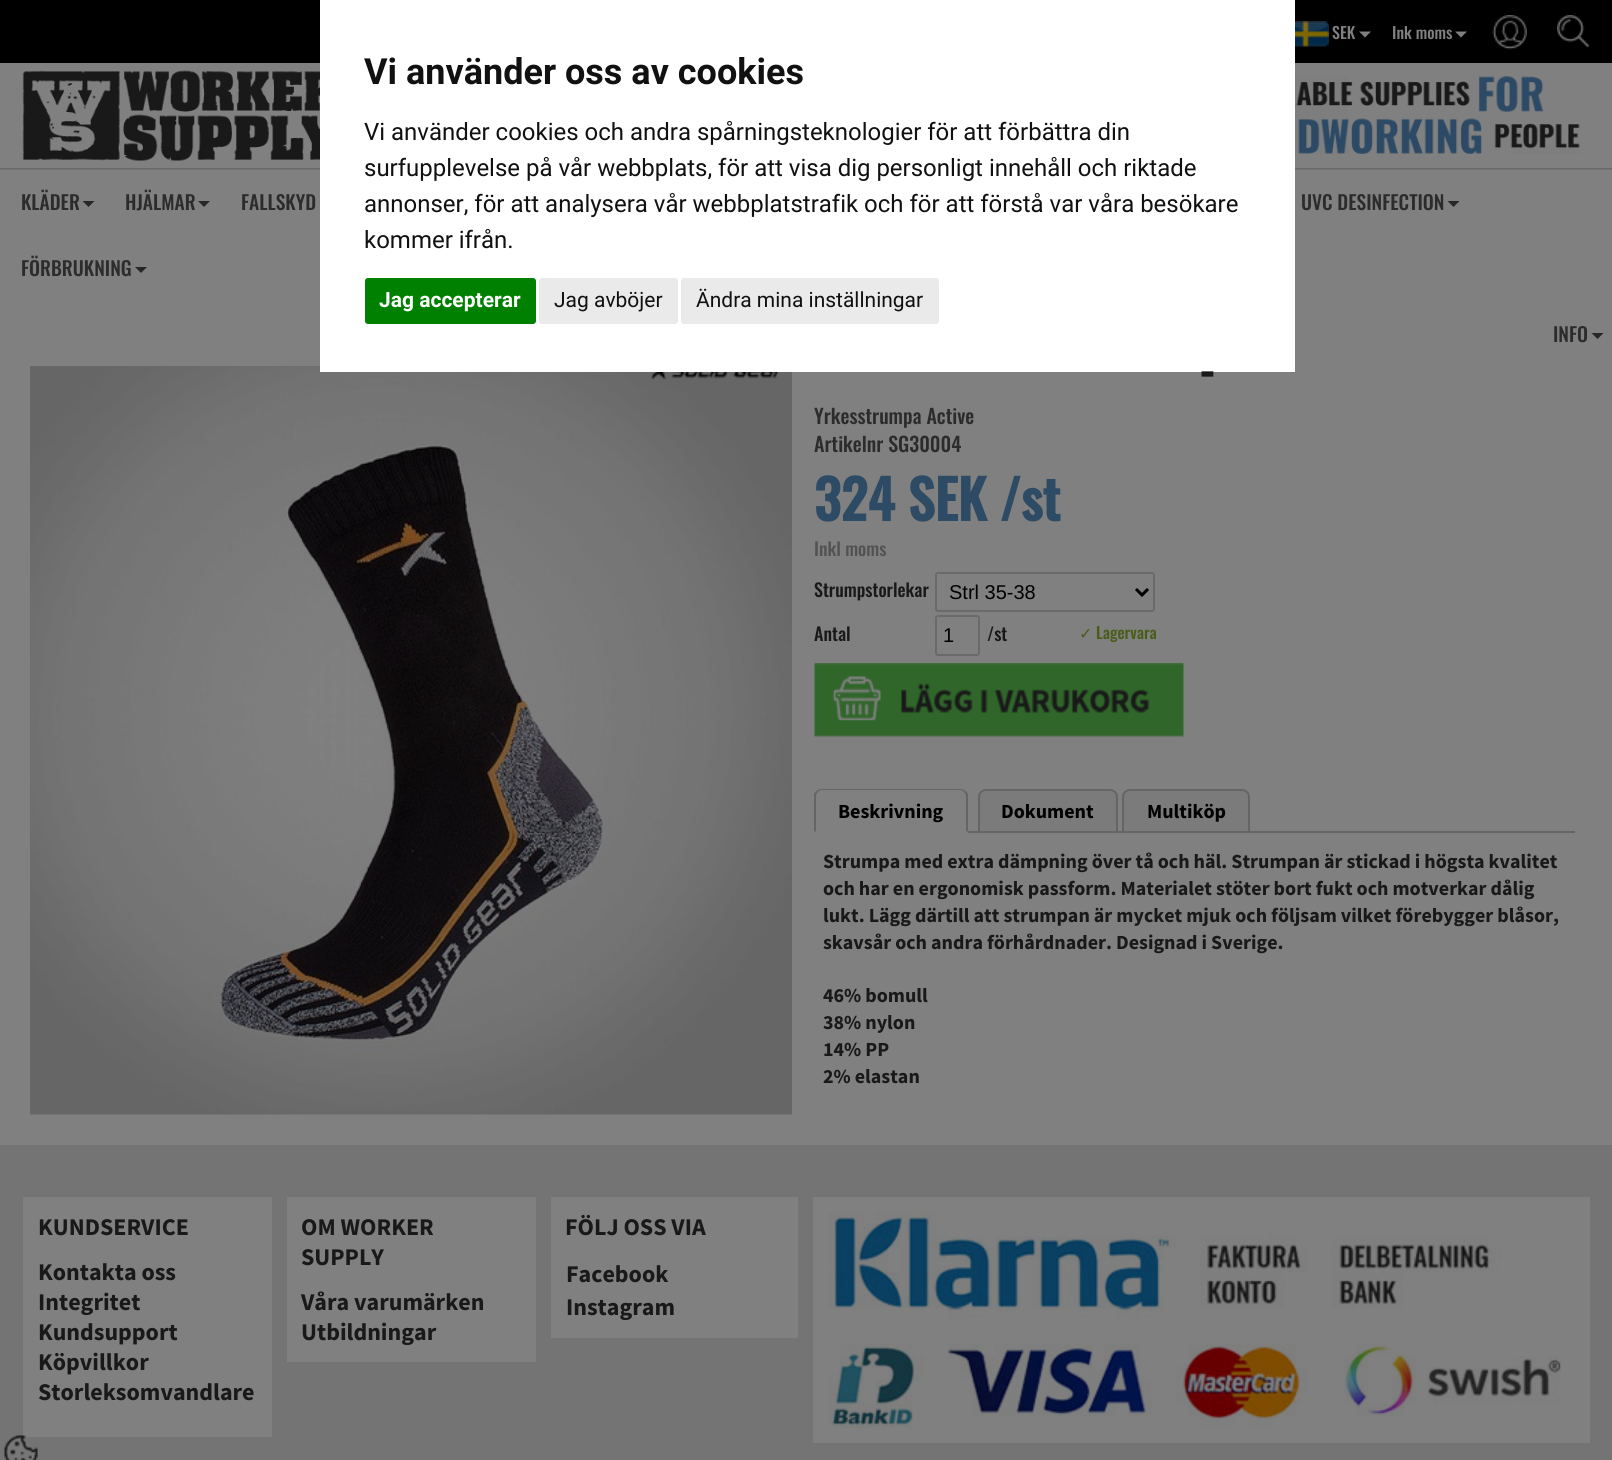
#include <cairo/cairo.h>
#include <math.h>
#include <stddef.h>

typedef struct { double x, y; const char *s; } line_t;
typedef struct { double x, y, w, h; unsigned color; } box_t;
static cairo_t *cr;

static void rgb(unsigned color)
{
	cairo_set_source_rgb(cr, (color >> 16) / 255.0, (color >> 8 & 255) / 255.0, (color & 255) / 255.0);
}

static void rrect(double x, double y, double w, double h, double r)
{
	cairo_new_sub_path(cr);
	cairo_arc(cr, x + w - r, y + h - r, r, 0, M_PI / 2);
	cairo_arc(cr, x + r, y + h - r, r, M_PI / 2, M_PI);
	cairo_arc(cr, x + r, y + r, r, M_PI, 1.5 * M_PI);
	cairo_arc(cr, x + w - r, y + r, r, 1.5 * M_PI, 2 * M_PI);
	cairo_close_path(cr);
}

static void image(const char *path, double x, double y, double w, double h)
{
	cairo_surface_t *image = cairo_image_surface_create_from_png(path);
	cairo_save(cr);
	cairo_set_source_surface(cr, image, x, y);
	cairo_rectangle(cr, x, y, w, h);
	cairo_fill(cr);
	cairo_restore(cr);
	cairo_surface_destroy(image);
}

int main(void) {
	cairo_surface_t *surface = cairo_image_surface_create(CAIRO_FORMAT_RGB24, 1612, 1460);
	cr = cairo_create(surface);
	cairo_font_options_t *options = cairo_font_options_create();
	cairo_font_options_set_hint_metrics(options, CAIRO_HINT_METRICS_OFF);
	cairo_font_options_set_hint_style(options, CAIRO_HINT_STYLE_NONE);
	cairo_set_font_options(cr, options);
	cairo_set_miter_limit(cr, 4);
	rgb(0x808080);
	cairo_paint(cr);
	rgb(0x000000);
	cairo_rectangle(cr, 0, 0, 1612, 63);
	cairo_fill(cr);
	image("img/1.png", 1295, 21, 34, 26);
	rgb(0x808080);
	cairo_new_path(cr);
	cairo_move_to(cr, 1359, 31.5);
	cairo_line_to(cr, 1371, 31.5);
	cairo_line_to(cr, 1365, 37.5);
	cairo_close_path(cr);
	cairo_fill(cr);
	cairo_new_path(cr);
	cairo_move_to(cr, 1455, 31.5);
	cairo_line_to(cr, 1467, 31.5);
	cairo_line_to(cr, 1461, 37.5);
	cairo_close_path(cr);
	cairo_fill(cr);
	image("img/2.png", 1492, 15, 35, 35);
	image("img/3.png", 1557, 15, 33, 33);
	image("img/4.png", 22, 70, 298, 91);
	image("img/5.png", 1295, 76, 285, 78);
	image("img/6.png", 0, 168, 1612, 2);
	rgb(0x272727);
	cairo_new_path(cr);
	cairo_move_to(cr, 82.5, 201);
	cairo_line_to(cr, 94.5, 201);
	cairo_line_to(cr, 88.5, 207);
	cairo_close_path(cr);
	cairo_fill(cr);
	cairo_new_path(cr);
	cairo_move_to(cr, 198, 201);
	cairo_line_to(cr, 210, 201);
	cairo_line_to(cr, 204, 207);
	cairo_close_path(cr);
	cairo_fill(cr);
	cairo_new_path(cr);
	cairo_move_to(cr, 1447.5, 201);
	cairo_line_to(cr, 1459.5, 201);
	cairo_line_to(cr, 1453.5, 207);
	cairo_close_path(cr);
	cairo_fill(cr);
	cairo_new_path(cr);
	cairo_move_to(cr, 135, 267);
	cairo_line_to(cr, 147, 267);
	cairo_line_to(cr, 141, 273);
	cairo_close_path(cr);
	cairo_fill(cr);
	cairo_new_path(cr);
	cairo_move_to(cr, 1591.5, 333);
	cairo_line_to(cr, 1603.5, 333);
	cairo_line_to(cr, 1597.5, 339);
	cairo_close_path(cr);
	cairo_fill(cr);
	image("img/7.png", 30, 366, 762, 749);
	rgb(0xffffff);
	cairo_rectangle(cr, 320, 0, 975, 372);
	cairo_fill(cr);
	rgb(0x008000);
	rrect(365, 278, 171, 46, 3);
	cairo_fill(cr);
	rgb(0xeaeaea);
	rrect(539, 278, 139, 46, 3);
	cairo_fill(cr);
	rrect(681, 278, 258, 46, 3);
	cairo_fill(cr);
	image("img/8.png", 649, 372, 130, 8);
	rrect(936, 573, 218, 38, 2);
	rgb(0x6a6a6a);
	cairo_stroke(cr);
	cairo_new_path(cr);
	cairo_move_to(cr, 1136, 589);
	cairo_line_to(cr, 1142, 595);
	cairo_line_to(cr, 1148, 589);
	rgb(0x000000);
	cairo_set_line_width(cr, 3);
	cairo_stroke(cr);
	rrect(936, 616, 43, 39, 2);
	rgb(0x6a6a6a);
	cairo_set_line_width(cr, 2);
	cairo_stroke(cr);
	image("img/9.png", 814, 663, 370, 74);
	rgb(0x656565);
	cairo_rectangle(cr, 968, 831, 607, 2);
	cairo_fill(cr);
	cairo_new_path(cr);
	cairo_move_to(cr, 822, 789);
	cairo_curve_to(cr, 820, 789, 818, 790, 816, 791);
	cairo_line_to(cr, 818, 792);
	cairo_curve_to(cr, 819, 791, 820, 790, 822, 790);
	cairo_line_to(cr, 960, 790);
	cairo_curve_to(cr, 962, 790, 963, 791, 964, 792);
	cairo_line_to(cr, 966, 791);
	cairo_curve_to(cr, 964, 790, 962, 789, 960, 789);
	cairo_close_path(cr);
	cairo_fill(cr);
	cairo_new_path(cr);
	cairo_move_to(cr, 968, 832);
	cairo_line_to(cr, 966, 831);
	cairo_line_to(cr, 966, 796);
	cairo_curve_to(cr, 966, 795, 965, 793, 964, 792);
	cairo_line_to(cr, 966, 791);
	cairo_line_to(cr, 968, 794);
	cairo_close_path(cr);
	cairo_fill(cr);
	rgb(0x808080);
	cairo_new_path(cr);
	cairo_move_to(cr, 967, 832);
	cairo_line_to(cr, 815, 832);
	cairo_line_to(cr, 816, 831);
	cairo_line_to(cr, 966, 831);
	cairo_close_path(cr);
	cairo_fill(cr);
	rgb(0x656565);
	cairo_new_path(cr);
	cairo_move_to(cr, 814, 794);
	cairo_line_to(cr, 816, 791);
	cairo_line_to(cr, 818, 792);
	cairo_curve_to(cr, 817, 793, 816, 795, 816, 796);
	cairo_line_to(cr, 816, 831);
	cairo_line_to(cr, 814, 832);
	cairo_close_path(cr);
	cairo_fill(cr);
	rgb(0x7b7b7b);
	cairo_new_path(cr);
	cairo_move_to(cr, 986, 790);
	cairo_line_to(cr, 1110, 790);
	cairo_curve_to(cr, 1114, 790, 1117, 793, 1117, 797);
	cairo_line_to(cr, 1117, 832);
	cairo_line_to(cr, 979, 832);
	cairo_line_to(cr, 979, 797);
	cairo_curve_to(cr, 979, 793, 982, 790, 986, 790);
	cairo_close_path(cr);
	cairo_fill_preserve(cr);
	rgb(0x656565);
	cairo_stroke(cr);
	rgb(0x7b7b7b);
	cairo_new_path(cr);
	cairo_move_to(cr, 1130, 790);
	cairo_line_to(cr, 1242, 790);
	cairo_curve_to(cr, 1246, 790, 1249, 793, 1249, 797);
	cairo_line_to(cr, 1249, 832);
	cairo_line_to(cr, 1123, 832);
	cairo_line_to(cr, 1123, 797);
	cairo_curve_to(cr, 1123, 793, 1126, 790, 1130, 790);
	cairo_close_path(cr);
	cairo_fill_preserve(cr);
	rgb(0x656565);
	cairo_stroke(cr);
	{
		static const box_t items[] = {
			{0, 1145, 1612, 315, 0x747474},
			{23, 1197, 249, 240, 0x808080},
			{287, 1197, 249, 165, 0x808080},
			{551, 1197, 247, 141, 0x808080},
			{813, 1197, 777, 246, 0x808080},
		};
		for (size_t i = 0; i < sizeof items / sizeof *items; i++) {
			rgb(items[i].color);
			cairo_rectangle(cr, items[i].x, items[i].y, items[i].w, items[i].h);
			cairo_fill(cr);
		}
	}
	image("img/10.png", 828, 1212, 733, 216);
	image("img/11.png", 4, 1435, 34, 25);
	cairo_select_font_face(cr, "Oswald Medium", CAIRO_FONT_SLANT_NORMAL, CAIRO_FONT_WEIGHT_NORMAL);
	cairo_set_font_size(cr, 16);
	cairo_move_to(cr, 1332, 39);
	cairo_show_text(cr, "SEK");
	cairo_move_to(cr, 1392, 39);
	cairo_show_text(cr, "Ink moms");
	cairo_set_font_size(cr, 19.5);
	rgb(0x2c2c2c);
	{
		static const line_t items[] = {
			{21, 210, "KLÄDER"},
			{125, 210, "HJÄLMAR"},
			{241, 210, "FALLSKYD"},
			{1301, 210, "UVC DESINFECTION"},
			{21, 276, "FÖRBRUKNING"},
			{1553, 342, "INFO"},
		};
		for (size_t i = 0; i < sizeof items / sizeof *items; i++) {
			cairo_move_to(cr, items[i].x, items[i].y);
			cairo_show_text(cr, items[i].s);
		}
	}
	cairo_select_font_face(cr, "Roboto", CAIRO_FONT_SLANT_NORMAL, CAIRO_FONT_WEIGHT_BOLD);
	cairo_set_font_size(cr, 36);
	rgb(0x111111);
	cairo_move_to(cr, 364, 84);
	cairo_show_text(cr, "Vi använder oss av cookies");
	cairo_select_font_face(cr, "Roboto", CAIRO_FONT_SLANT_NORMAL, CAIRO_FONT_WEIGHT_NORMAL);
	cairo_set_font_size(cr, 24);
	{
		static const line_t items[] = {
			{364, 140, "Vi använder cookies och andra spårningsteknologier för att förbättra din"},
			{364, 176, "surfupplevelse på vår webbplats, för att visa dig personligt innehåll och riktade"},
			{364, 212, "annonser, för att analysera vår webbplatstrafik och för att förstå var våra besökare"},
			{364, 248, "kommer ifrån."},
		};
		for (size_t i = 0; i < sizeof items / sizeof *items; i++) {
			cairo_move_to(cr, items[i].x, items[i].y);
			cairo_show_text(cr, items[i].s);
		}
	}
	cairo_select_font_face(cr, "Roboto", CAIRO_FONT_SLANT_NORMAL, CAIRO_FONT_WEIGHT_BOLD);
	cairo_set_font_size(cr, 21);
	rgb(0xffffff);
	cairo_move_to(cr, 379, 307);
	cairo_show_text(cr, "Jag accepterar");
	cairo_select_font_face(cr, "Roboto", CAIRO_FONT_SLANT_NORMAL, CAIRO_FONT_WEIGHT_NORMAL);
	rgb(0x111111);
	cairo_move_to(cr, 554, 307);
	cairo_show_text(cr, "Jag avböjer");
	cairo_move_to(cr, 696, 307);
	cairo_show_text(cr, "Ändra mina inställningar");
	cairo_select_font_face(cr, "Oswald", CAIRO_FONT_SLANT_NORMAL, CAIRO_FONT_WEIGHT_BOLD);
	cairo_set_font_size(cr, 44);
	rgb(0x191919);
	cairo_move_to(cr, 1199, 389);
	cairo_show_text(cr, "-");
	cairo_select_font_face(cr, "Oswald Medium", CAIRO_FONT_SLANT_NORMAL, CAIRO_FONT_WEIGHT_NORMAL);
	cairo_set_font_size(cr, 20);
	rgb(0x2c2c2c);
	cairo_move_to(cr, 814, 424);
	cairo_show_text(cr, "Yrkesstrumpa Active");
	cairo_move_to(cr, 814, 452);
	cairo_show_text(cr, "Artikelnr SG30004");
	cairo_select_font_face(cr, "Oswald", CAIRO_FONT_SLANT_NORMAL, CAIRO_FONT_WEIGHT_BOLD);
	cairo_set_font_size(cr, 54);
	rgb(0x2e4b65);
	cairo_move_to(cr, 814, 521);
	cairo_show_text(cr, "324 SEK /st");
	cairo_select_font_face(cr, "Oswald Medium", CAIRO_FONT_SLANT_NORMAL, CAIRO_FONT_WEIGHT_NORMAL);
	cairo_set_font_size(cr, 18);
	rgb(0x525252);
	cairo_move_to(cr, 814, 556);
	cairo_show_text(cr, "Inkl moms");
	rgb(0x191919);
	cairo_move_to(cr, 814, 597);
	cairo_show_text(cr, "Strumpstorlekar");
	cairo_select_font_face(cr, "Liberation Sans", CAIRO_FONT_SLANT_NORMAL, CAIRO_FONT_WEIGHT_NORMAL);
	cairo_set_font_size(cr, 20);
	rgb(0x000000);
	cairo_move_to(cr, 949, 599);
	cairo_show_text(cr, "Strl 35-38");
	cairo_select_font_face(cr, "Oswald Medium", CAIRO_FONT_SLANT_NORMAL, CAIRO_FONT_WEIGHT_NORMAL);
	cairo_set_font_size(cr, 18);
	rgb(0x191919);
	cairo_move_to(cr, 814, 641);
	cairo_show_text(cr, "Antal");
	cairo_select_font_face(cr, "Liberation Sans", CAIRO_FONT_SLANT_NORMAL, CAIRO_FONT_WEIGHT_NORMAL);
	cairo_set_font_size(cr, 20);
	rgb(0x000000);
	cairo_move_to(cr, 943, 642);
	cairo_show_text(cr, "1");
	cairo_select_font_face(cr, "Oswald Medium", CAIRO_FONT_SLANT_NORMAL, CAIRO_FONT_WEIGHT_NORMAL);
	cairo_set_font_size(cr, 18);
	rgb(0x191919);
	cairo_move_to(cr, 987, 641);
	cairo_show_text(cr, "/st");
	cairo_select_font_face(cr, "DejaVu Sans", CAIRO_FONT_SLANT_NORMAL, CAIRO_FONT_WEIGHT_NORMAL);
	cairo_set_font_size(cr, 16);
	rgb(0x4a5c18);
	cairo_move_to(cr, 1079, 639);
	cairo_show_text(cr, "✓");
	cairo_select_font_face(cr, "Oswald Medium", CAIRO_FONT_SLANT_NORMAL, CAIRO_FONT_WEIGHT_NORMAL);
	cairo_move_to(cr, 1096, 639);
	cairo_show_text(cr, "Lagervara");
	cairo_select_font_face(cr, "Source Sans Pro", CAIRO_FONT_SLANT_NORMAL, CAIRO_FONT_WEIGHT_BOLD);
	cairo_set_font_size(cr, 20);
	rgb(0x000000);
	{
		static const line_t items[] = {
			{838, 818, "Beskrivning"},
			{1001, 818, "Dokument"},
			{1147, 818, "Multiköp"},
		};
		for (size_t i = 0; i < sizeof items / sizeof *items; i++) {
			cairo_move_to(cr, items[i].x, items[i].y);
			cairo_show_text(cr, items[i].s);
		}
	}
	rgb(0x191919);
	{
		static const line_t items[] = {
			{823, 868, "Strumpa med extra dämpning över tå och häl. Strumpan är stickad i högsta kvalitet"},
			{823, 895, "och har en ergonomisk passform. Materialet stöter bort fukt och motverkar dålig"},
			{823, 922, "lukt. Lägg därtill att strumpan är mycket mjuk och följsam vilket förebygger blåsor,"},
			{823, 949, "skavsår och andra förhårdnader. Designad i Sverige."},
			{823, 1002, "46% bomull"},
			{823, 1029, "38% nylon"},
			{823, 1056, "14% PP"},
			{823, 1083, "2% elastan"},
		};
		for (size_t i = 0; i < sizeof items / sizeof *items; i++) {
			cairo_move_to(cr, items[i].x, items[i].y);
			cairo_show_text(cr, items[i].s);
		}
	}
	cairo_set_font_size(cr, 24);
	{
		static const line_t items[] = {
			{38, 1235, "KUNDSERVICE"},
			{38, 1280, "Kontakta oss"},
			{38, 1310, "Integritet"},
			{38, 1340, "Kundsupport"},
			{38, 1370, "Köpvillkor"},
			{38, 1400, "Storleksomvandlare"},
			{301, 1235, "OM WORKER"},
			{301, 1265, "SUPPLY"},
			{301, 1310, "Våra varumärken"},
			{301, 1340, "Utbildningar"},
			{565, 1235, "FÖLJ OSS VIA"},
			{566, 1282, "Facebook"},
			{566, 1315, "Instagram"},
		};
		for (size_t i = 0; i < sizeof items / sizeof *items; i++) {
			cairo_move_to(cr, items[i].x, items[i].y);
			cairo_show_text(cr, items[i].s);
		}
	}
	cairo_surface_write_to_png(surface, "page.png");
	cairo_font_options_destroy(options);
	cairo_destroy(cr);
	cairo_surface_destroy(surface);
	return 0;
}
